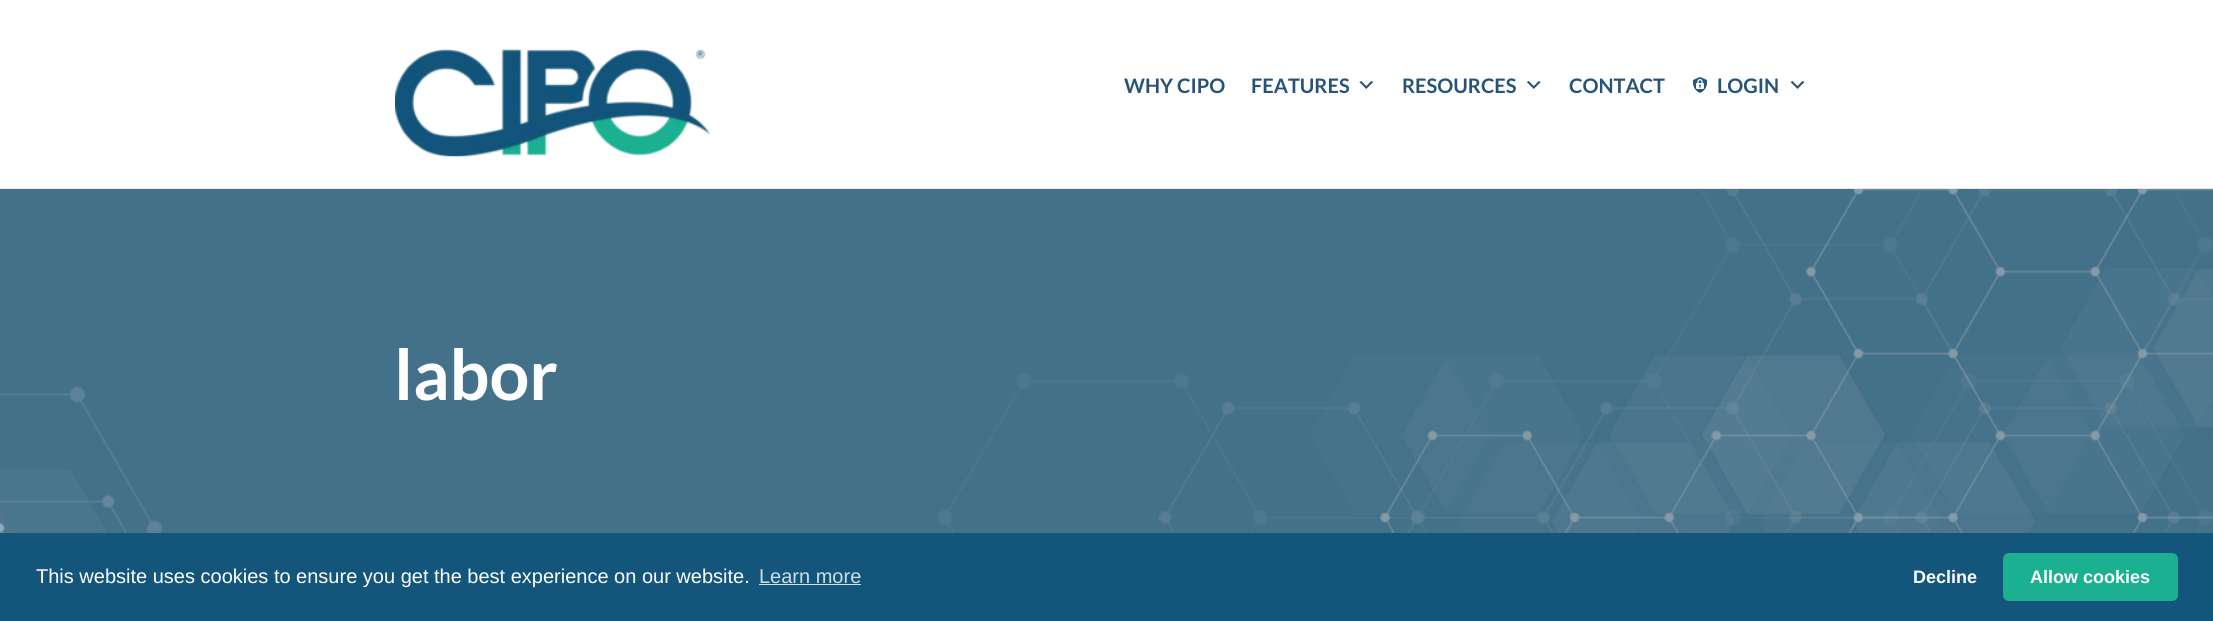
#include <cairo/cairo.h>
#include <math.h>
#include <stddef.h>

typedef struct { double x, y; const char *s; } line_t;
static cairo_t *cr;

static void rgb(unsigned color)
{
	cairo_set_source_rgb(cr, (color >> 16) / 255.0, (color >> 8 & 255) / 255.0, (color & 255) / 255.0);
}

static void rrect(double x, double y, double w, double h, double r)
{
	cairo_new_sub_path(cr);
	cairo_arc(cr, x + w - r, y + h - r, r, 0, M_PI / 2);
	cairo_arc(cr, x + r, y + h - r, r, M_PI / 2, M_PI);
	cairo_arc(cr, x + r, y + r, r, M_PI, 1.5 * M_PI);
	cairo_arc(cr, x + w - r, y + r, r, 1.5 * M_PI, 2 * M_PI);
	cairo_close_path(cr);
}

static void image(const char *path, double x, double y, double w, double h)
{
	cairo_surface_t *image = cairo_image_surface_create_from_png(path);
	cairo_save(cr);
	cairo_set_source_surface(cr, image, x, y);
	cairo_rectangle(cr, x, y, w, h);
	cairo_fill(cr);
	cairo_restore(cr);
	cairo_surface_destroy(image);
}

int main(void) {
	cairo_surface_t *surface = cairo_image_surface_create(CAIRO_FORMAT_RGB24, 2213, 621);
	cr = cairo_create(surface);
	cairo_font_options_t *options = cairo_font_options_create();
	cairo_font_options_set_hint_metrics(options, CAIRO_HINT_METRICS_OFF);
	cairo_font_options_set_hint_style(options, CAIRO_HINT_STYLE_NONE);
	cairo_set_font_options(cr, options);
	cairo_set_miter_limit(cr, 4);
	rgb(0xffffff);
	cairo_paint(cr);
	rgb(0xe7e7e7);
	cairo_rectangle(cr, 0, 188, 2213, 1);
	cairo_fill(cr);
	image("img/1.png", 395, 48, 315, 109);
	image("img/2.png", 1359, 81, 15, 8);
	image("img/3.png", 1526, 81, 15, 8);
	image("img/4.png", 1693, 77, 14, 16);
	image("img/5.png", 1790, 81, 15, 8);
	image("img/6.png", 0, 189, 2213, 344);
	rgb(0x13557b);
	cairo_rectangle(cr, 0, 533, 2213, 88);
	cairo_fill(cr);
	rgb(0xd0dde5);
	cairo_rectangle(cr, 759, 584, 102, 1);
	cairo_fill(cr);
	rgb(0x1cb092);
	rrect(2004.5, 554.5, 172, 45, 4.5);
	cairo_fill_preserve(cr);
	cairo_set_line_width(cr, 3);
	cairo_stroke(cr);
	cairo_select_font_face(cr, "Lato", CAIRO_FONT_SLANT_NORMAL, CAIRO_FONT_WEIGHT_BOLD);
	cairo_set_font_size(cr, 20);
	rgb(0x275378);
	{
		static const line_t items[] = {
			{1124, 93, "WHY CIPO"},
			{1251, 93, "FEATURES"},
			{1402, 93, "RESOURCES"},
			{1569, 93, "CONTACT"},
			{1717, 93, "LOGIN"},
		};
		for (size_t i = 0; i < sizeof items / sizeof *items; i++) {
			cairo_move_to(cr, items[i].x, items[i].y);
			cairo_show_text(cr, items[i].s);
		}
	}
	cairo_set_font_size(cr, 70);
	rgb(0xffffff);
	cairo_move_to(cr, 394, 400);
	cairo_show_text(cr, "labor");
	cairo_select_font_face(cr, "Liberation Sans", CAIRO_FONT_SLANT_NORMAL, CAIRO_FONT_WEIGHT_NORMAL);
	cairo_set_font_size(cr, 20);
	cairo_move_to(cr, 36, 583);
	cairo_show_text(cr, "This website uses cookies to ensure you get the best experience on our website.");
	rgb(0xd0dde5);
	cairo_move_to(cr, 759, 583);
	cairo_show_text(cr, "Learn more");
	cairo_select_font_face(cr, "Liberation Sans", CAIRO_FONT_SLANT_NORMAL, CAIRO_FONT_WEIGHT_BOLD);
	cairo_set_font_size(cr, 18);
	rgb(0xffffff);
	cairo_move_to(cr, 1913, 583);
	cairo_show_text(cr, "Decline");
	cairo_move_to(cr, 2030, 583);
	cairo_show_text(cr, "Allow cookies");
	cairo_surface_write_to_png(surface, "page.png");
	cairo_font_options_destroy(options);
	cairo_destroy(cr);
	cairo_surface_destroy(surface);
	return 0;
}
